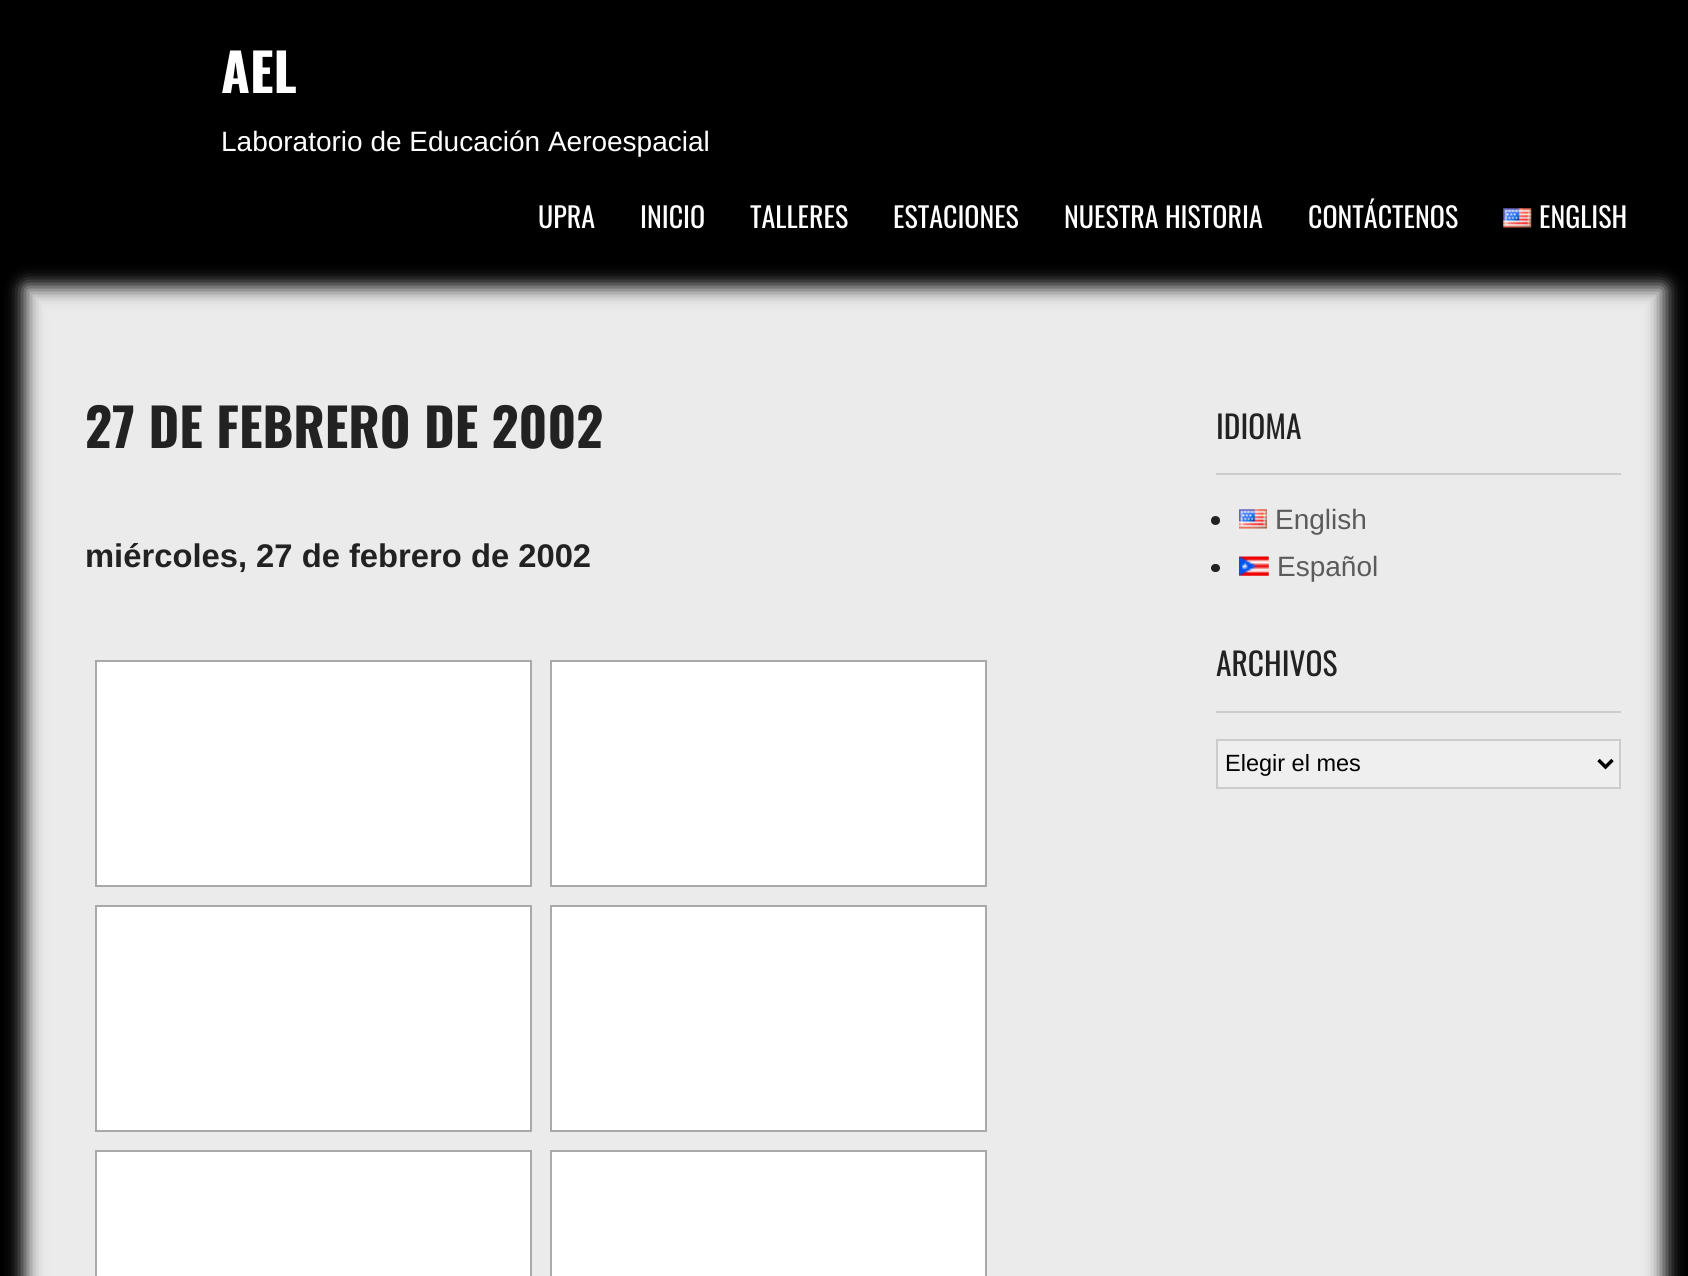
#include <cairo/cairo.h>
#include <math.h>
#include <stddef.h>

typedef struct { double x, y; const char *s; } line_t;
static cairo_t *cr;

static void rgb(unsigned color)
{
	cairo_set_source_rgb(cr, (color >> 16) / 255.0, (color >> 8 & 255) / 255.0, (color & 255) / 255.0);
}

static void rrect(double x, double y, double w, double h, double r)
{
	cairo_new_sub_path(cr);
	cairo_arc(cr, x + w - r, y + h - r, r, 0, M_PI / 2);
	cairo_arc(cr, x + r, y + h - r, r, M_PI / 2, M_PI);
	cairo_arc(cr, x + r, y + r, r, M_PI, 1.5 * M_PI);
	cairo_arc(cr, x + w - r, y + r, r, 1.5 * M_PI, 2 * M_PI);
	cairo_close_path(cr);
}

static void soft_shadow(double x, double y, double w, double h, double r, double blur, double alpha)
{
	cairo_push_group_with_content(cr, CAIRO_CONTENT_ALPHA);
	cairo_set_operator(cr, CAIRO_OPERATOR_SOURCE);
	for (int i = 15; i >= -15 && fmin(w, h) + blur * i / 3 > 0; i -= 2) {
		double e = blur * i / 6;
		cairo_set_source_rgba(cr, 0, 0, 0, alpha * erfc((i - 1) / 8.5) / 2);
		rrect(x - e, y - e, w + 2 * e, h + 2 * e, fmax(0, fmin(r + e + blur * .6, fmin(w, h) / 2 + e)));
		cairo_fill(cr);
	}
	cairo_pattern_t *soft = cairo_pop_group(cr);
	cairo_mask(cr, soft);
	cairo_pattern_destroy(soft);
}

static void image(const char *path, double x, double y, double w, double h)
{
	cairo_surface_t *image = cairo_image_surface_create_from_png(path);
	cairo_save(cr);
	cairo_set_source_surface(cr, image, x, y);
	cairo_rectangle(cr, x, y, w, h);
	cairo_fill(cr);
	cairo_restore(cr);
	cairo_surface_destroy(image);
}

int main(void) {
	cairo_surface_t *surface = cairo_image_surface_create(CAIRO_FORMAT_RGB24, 1688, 1276);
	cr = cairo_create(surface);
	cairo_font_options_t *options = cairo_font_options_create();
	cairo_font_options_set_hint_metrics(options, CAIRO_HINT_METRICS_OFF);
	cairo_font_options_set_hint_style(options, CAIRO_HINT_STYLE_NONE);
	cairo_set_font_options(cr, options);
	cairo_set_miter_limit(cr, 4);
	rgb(0x000000);
	cairo_paint(cr);
	image("img/1.png", 1503, 208, 29, 20);
	cairo_save(cr);
	cairo_set_fill_rule(cr, CAIRO_FILL_RULE_EVEN_ODD);
	cairo_new_path(cr);
	cairo_move_to(cr, 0, 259);
	cairo_line_to(cr, 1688, 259);
	cairo_line_to(cr, 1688, 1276);
	cairo_line_to(cr, 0, 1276);
	cairo_close_path(cr);
	cairo_move_to(cr, 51, 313);
	cairo_line_to(cr, 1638, 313);
	cairo_line_to(cr, 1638, 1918);
	cairo_line_to(cr, 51, 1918);
	cairo_close_path(cr);
	cairo_clip(cr);
	rgb(0xffffff);
	soft_shadow(25, 287, 1639, 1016, 0, 9, 0.92);
	cairo_restore(cr);
	cairo_set_source_rgba(cr, 1, 1, 1, 0.92);
	cairo_rectangle(cr, 51, 313, 1587, 963);
	cairo_fill(cr);
	rgb(0xffffff);
	cairo_rectangle(cr, 96, 661, 435, 225);
	cairo_fill_preserve(cr);
	rgb(0xa9a9a9);
	cairo_stroke(cr);
	rgb(0xffffff);
	cairo_rectangle(cr, 551, 661, 435, 225);
	cairo_fill_preserve(cr);
	rgb(0xa9a9a9);
	cairo_stroke(cr);
	rgb(0xffffff);
	cairo_rectangle(cr, 96, 906, 435, 225);
	cairo_fill_preserve(cr);
	rgb(0xa9a9a9);
	cairo_stroke(cr);
	rgb(0xffffff);
	cairo_rectangle(cr, 551, 906, 435, 225);
	cairo_fill_preserve(cr);
	rgb(0xa9a9a9);
	cairo_stroke(cr);
	rgb(0xffffff);
	cairo_rectangle(cr, 96, 1151, 435, 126);
	cairo_fill_preserve(cr);
	rgb(0xa9a9a9);
	cairo_stroke(cr);
	rgb(0xffffff);
	cairo_rectangle(cr, 551, 1151, 435, 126);
	cairo_fill_preserve(cr);
	rgb(0xa9a9a9);
	cairo_stroke(cr);
	rgb(0xcccccc);
	cairo_rectangle(cr, 1216, 473, 405, 2);
	cairo_fill(cr);
	rgb(0x222222);
	cairo_arc(cr, 1215.5, 520.5, 4.5, 0, 2 * M_PI);
	cairo_fill(cr);
	image("img/2.png", 1239, 509, 28, 20);
	rrect(1211, 564, 9, 8, 4);
	cairo_fill(cr);
	image("img/3.png", 1239, 556, 30, 20);
	rgb(0xcccccc);
	cairo_rectangle(cr, 1216, 711, 405, 2);
	cairo_fill(cr);
	rgb(0xefefef);
	cairo_rectangle(cr, 1217, 740, 403, 48);
	cairo_fill_preserve(cr);
	rgb(0xcccccc);
	cairo_stroke(cr);
	cairo_new_path(cr);
	cairo_move_to(cr, 1598.5, 760);
	cairo_line_to(cr, 1605.5, 767);
	cairo_line_to(cr, 1612.5, 760);
	rgb(0x000000);
	cairo_set_line_width(cr, 3.5);
	cairo_stroke(cr);
	cairo_select_font_face(cr, "Oswald", CAIRO_FONT_SLANT_NORMAL, CAIRO_FONT_WEIGHT_BOLD);
	cairo_set_font_size(cr, 52.5);
	rgb(0xffffff);
	cairo_move_to(cr, 221, 93);
	cairo_show_text(cr, "AEL");
	cairo_select_font_face(cr, "Liberation Sans", CAIRO_FONT_SLANT_NORMAL, CAIRO_FONT_WEIGHT_NORMAL);
	cairo_set_font_size(cr, 28);
	cairo_move_to(cr, 221, 151);
	cairo_show_text(cr, "Laboratorio de Educación Aeroespacial");
	cairo_select_font_face(cr, "Oswald", CAIRO_FONT_SLANT_NORMAL, CAIRO_FONT_WEIGHT_NORMAL);
	{
		static const line_t items[] = {
			{538, 228, "UPRA"},
			{640, 228, "INICIO"},
			{750, 228, "TALLERES"},
			{893, 228, "ESTACIONES"},
			{1064, 228, "NUESTRA HISTORIA"},
			{1308, 228, "CONTÁCTENOS"},
			{1539, 228, "ENGLISH"},
		};
		for (size_t i = 0; i < sizeof items / sizeof *items; i++) {
			cairo_move_to(cr, items[i].x, items[i].y);
			cairo_show_text(cr, items[i].s);
		}
	}
	cairo_select_font_face(cr, "Oswald", CAIRO_FONT_SLANT_NORMAL, CAIRO_FONT_WEIGHT_BOLD);
	cairo_set_font_size(cr, 52.5);
	rgb(0x222222);
	cairo_move_to(cr, 85, 448);
	cairo_show_text(cr, "27 DE FEBRERO DE 2002");
	cairo_select_font_face(cr, "Liberation Sans", CAIRO_FONT_SLANT_NORMAL, CAIRO_FONT_WEIGHT_BOLD);
	cairo_set_font_size(cr, 32.75);
	cairo_move_to(cr, 85, 567);
	cairo_show_text(cr, "miércoles, 27 de febrero de 2002");
	cairo_select_font_face(cr, "Oswald", CAIRO_FONT_SLANT_NORMAL, CAIRO_FONT_WEIGHT_NORMAL);
	cairo_set_font_size(cr, 31.5);
	cairo_move_to(cr, 1216, 439);
	cairo_show_text(cr, "IDIOMA");
	cairo_select_font_face(cr, "Liberation Sans", CAIRO_FONT_SLANT_NORMAL, CAIRO_FONT_WEIGHT_NORMAL);
	cairo_set_font_size(cr, 28);
	rgb(0x5b5b5b);
	cairo_move_to(cr, 1275, 529);
	cairo_show_text(cr, "English");
	cairo_move_to(cr, 1277, 576);
	cairo_show_text(cr, "Español");
	cairo_select_font_face(cr, "Oswald", CAIRO_FONT_SLANT_NORMAL, CAIRO_FONT_WEIGHT_NORMAL);
	cairo_set_font_size(cr, 31.5);
	rgb(0x222222);
	cairo_move_to(cr, 1216, 676);
	cairo_show_text(cr, "ARCHIVOS");
	cairo_select_font_face(cr, "Liberation Sans", CAIRO_FONT_SLANT_NORMAL, CAIRO_FONT_WEIGHT_NORMAL);
	cairo_set_font_size(cr, 23.5);
	rgb(0x000000);
	cairo_move_to(cr, 1225, 771);
	cairo_show_text(cr, "Elegir el mes");
	cairo_surface_write_to_png(surface, "page.png");
	cairo_font_options_destroy(options);
	cairo_destroy(cr);
	cairo_surface_destroy(surface);
	return 0;
}
